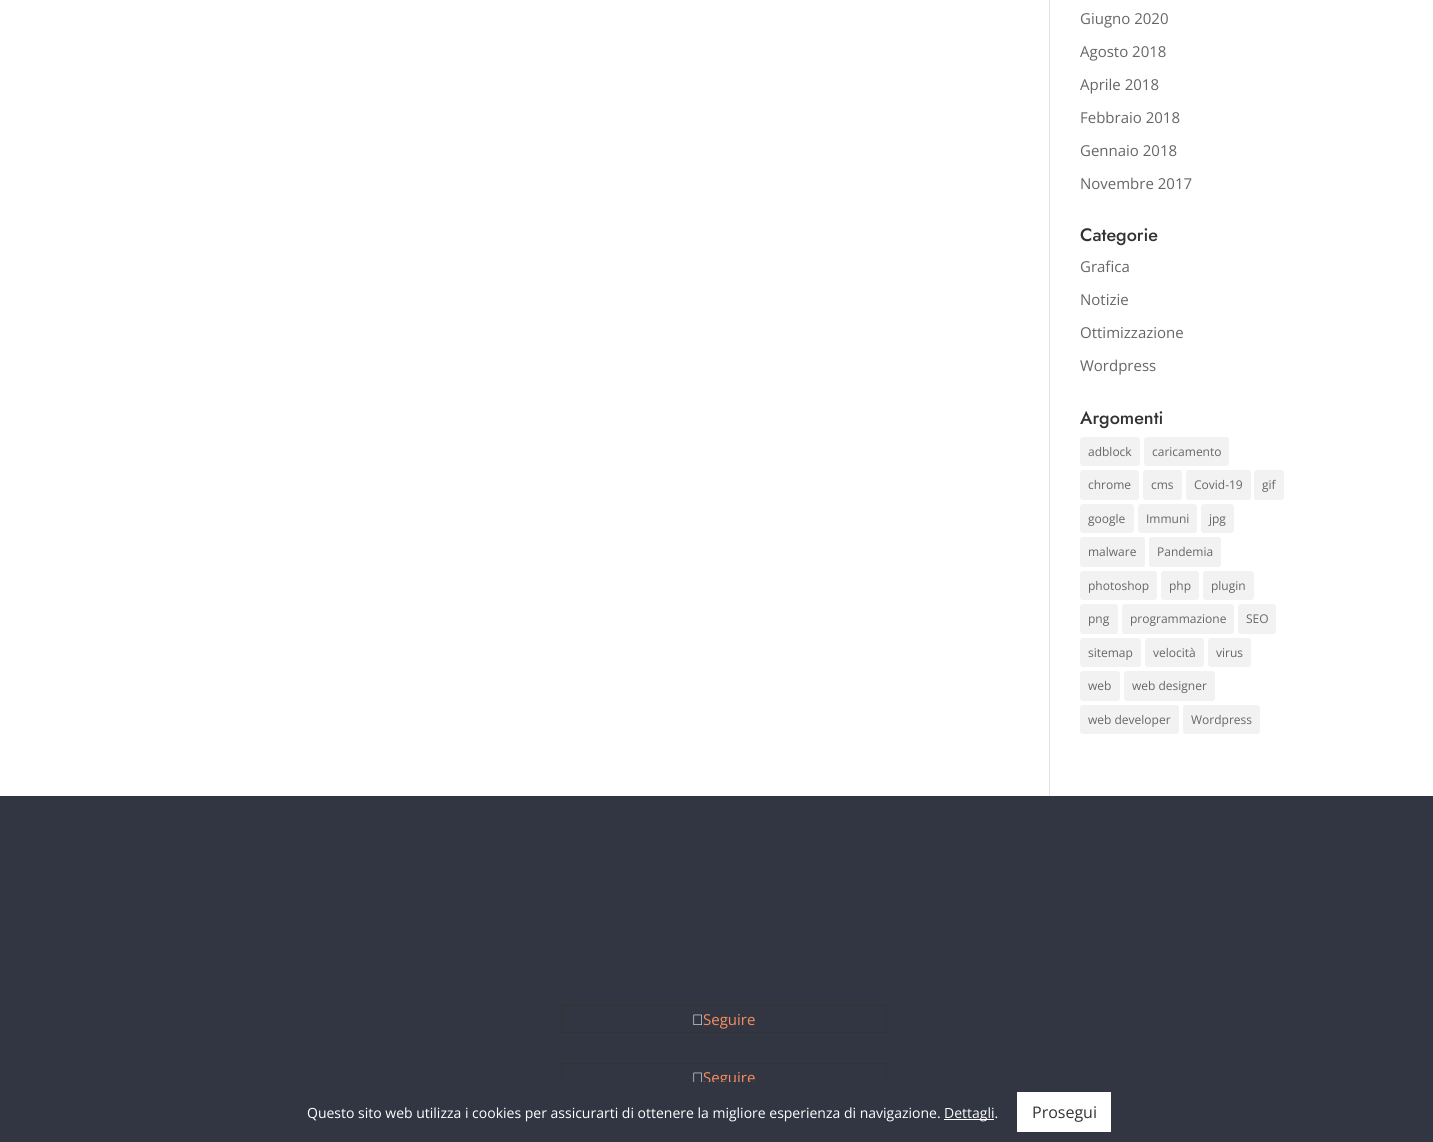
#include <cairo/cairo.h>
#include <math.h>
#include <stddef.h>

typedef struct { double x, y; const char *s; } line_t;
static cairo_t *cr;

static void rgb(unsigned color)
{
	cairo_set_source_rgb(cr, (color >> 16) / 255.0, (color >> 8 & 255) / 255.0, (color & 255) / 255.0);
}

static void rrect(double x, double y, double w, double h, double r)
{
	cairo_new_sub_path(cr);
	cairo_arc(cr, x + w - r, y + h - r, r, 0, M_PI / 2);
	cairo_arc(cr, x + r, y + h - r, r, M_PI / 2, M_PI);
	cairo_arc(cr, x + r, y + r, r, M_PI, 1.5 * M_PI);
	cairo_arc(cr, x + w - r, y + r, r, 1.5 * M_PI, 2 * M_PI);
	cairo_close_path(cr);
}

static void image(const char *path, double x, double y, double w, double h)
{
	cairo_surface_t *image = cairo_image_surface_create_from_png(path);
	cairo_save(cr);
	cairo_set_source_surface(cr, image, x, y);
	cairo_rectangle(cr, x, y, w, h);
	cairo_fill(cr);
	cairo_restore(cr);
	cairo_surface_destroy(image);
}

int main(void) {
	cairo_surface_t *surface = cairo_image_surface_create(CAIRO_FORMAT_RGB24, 1433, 1142);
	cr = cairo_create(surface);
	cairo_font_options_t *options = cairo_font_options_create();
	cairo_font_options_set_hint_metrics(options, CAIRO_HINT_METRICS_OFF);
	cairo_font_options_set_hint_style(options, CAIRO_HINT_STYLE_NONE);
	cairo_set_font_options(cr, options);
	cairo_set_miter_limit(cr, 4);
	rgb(0xffffff);
	cairo_paint(cr);
	rgb(0xe2e2e2);
	cairo_rectangle(cr, 1049, 0, 1, 796);
	cairo_fill(cr);
	rgb(0xf2f2f2);
	rrect(1080, 437, 60, 29, 3);
	cairo_fill(cr);
	rrect(1144, 437, 85, 29, 3);
	cairo_fill(cr);
	rrect(1080, 470, 59, 30, 3);
	cairo_fill(cr);
	rrect(1143, 470, 39, 30, 3);
	cairo_fill(cr);
	rrect(1186, 470, 65, 30, 3);
	cairo_fill(cr);
	rrect(1254, 470, 30, 30, 3);
	cairo_fill(cr);
	rrect(1080, 504, 54, 29, 3);
	cairo_fill(cr);
	rrect(1138, 504, 59, 29, 3);
	cairo_fill(cr);
	rrect(1201, 504, 33, 29, 3);
	cairo_fill(cr);
	rrect(1080, 537, 65, 30, 3);
	cairo_fill(cr);
	rrect(1149, 537, 72, 30, 3);
	cairo_fill(cr);
	rrect(1080, 571, 77, 29, 3);
	cairo_fill(cr);
	rrect(1161, 571, 38, 29, 3);
	cairo_fill(cr);
	rrect(1203, 571, 51, 29, 3);
	cairo_fill(cr);
	rrect(1080, 604, 38, 30, 3);
	cairo_fill(cr);
	rrect(1122, 604, 112, 30, 3);
	cairo_fill(cr);
	rrect(1238, 604, 38, 30, 3);
	cairo_fill(cr);
	rrect(1080, 638, 61, 29, 3);
	cairo_fill(cr);
	rrect(1145, 638, 59, 29, 3);
	cairo_fill(cr);
	rrect(1208, 638, 43, 29, 3);
	cairo_fill(cr);
	rrect(1080, 671, 40, 30, 3);
	cairo_fill(cr);
	rrect(1124, 671, 91, 30, 3);
	cairo_fill(cr);
	rrect(1080, 705, 99, 29, 3);
	cairo_fill(cr);
	rrect(1183, 705, 77, 29, 3);
	cairo_fill(cr);
	rgb(0x323643);
	cairo_rectangle(cr, 0, 796, 1433, 286);
	cairo_fill(cr);
	cairo_rectangle(cr, 561.5, 1005.5, 325, 27);
	rgb(0x333333);
	cairo_set_line_width(cr, 1);
	cairo_stroke(cr);
	image("img/1.png", 693, 1014, 9, 11);
	cairo_rectangle(cr, 561.5, 1063.5, 325, 27);
	cairo_stroke(cr);
	image("img/2.png", 693, 1072, 9, 10);
	cairo_select_font_face(cr, "Open Sans", CAIRO_FONT_SLANT_NORMAL, CAIRO_FONT_WEIGHT_NORMAL);
	cairo_set_font_size(cr, 15);
	rgb(0x666666);
	{
		static const line_t items[] = {
			{1080, 24, "Giugno 2020"},
			{1080, 57, "Agosto 2018"},
			{1080, 90, "Aprile 2018"},
			{1080, 123, "Febbraio 2018"},
			{1080, 156, "Gennaio 2018"},
			{1080, 189, "Novembre 2017"},
		};
		for (size_t i = 0; i < sizeof items / sizeof *items; i++) {
			cairo_move_to(cr, items[i].x, items[i].y);
			cairo_show_text(cr, items[i].s);
		}
	}
	cairo_select_font_face(cr, "Jost Medium", CAIRO_FONT_SLANT_NORMAL, CAIRO_FONT_WEIGHT_NORMAL);
	cairo_set_font_size(cr, 18);
	rgb(0x333333);
	cairo_move_to(cr, 1080, 241);
	cairo_show_text(cr, "Categorie");
	cairo_select_font_face(cr, "Open Sans", CAIRO_FONT_SLANT_NORMAL, CAIRO_FONT_WEIGHT_NORMAL);
	cairo_set_font_size(cr, 15);
	rgb(0x666666);
	{
		static const line_t items[] = {
			{1080, 272, "Grafica"},
			{1080, 305, "Notizie"},
			{1080, 338, "Ottimizzazione"},
			{1080, 371, "Wordpress"},
		};
		for (size_t i = 0; i < sizeof items / sizeof *items; i++) {
			cairo_move_to(cr, items[i].x, items[i].y);
			cairo_show_text(cr, items[i].s);
		}
	}
	cairo_select_font_face(cr, "Jost Medium", CAIRO_FONT_SLANT_NORMAL, CAIRO_FONT_WEIGHT_NORMAL);
	cairo_set_font_size(cr, 18);
	rgb(0x333333);
	cairo_move_to(cr, 1080, 424);
	cairo_show_text(cr, "Argomenti");
	cairo_select_font_face(cr, "Open Sans", CAIRO_FONT_SLANT_NORMAL, CAIRO_FONT_WEIGHT_NORMAL);
	cairo_set_font_size(cr, 12);
	rgb(0x666666);
	{
		static const line_t items[] = {
			{1088, 456, "adblock"},
			{1152, 456, "caricamento"},
			{1088, 489, "chrome"},
			{1151, 489, "cms"},
			{1194, 489, "Covid-19"},
			{1262, 489, "gif"},
			{1088, 523, "google"},
			{1146, 523, "Immuni"},
			{1209, 523, "jpg"},
			{1088, 556, "malware"},
			{1157, 556, "Pandemia"},
			{1088, 590, "photoshop"},
			{1169, 590, "php"},
			{1211, 590, "plugin"},
			{1088, 623, "png"},
			{1130, 623, "programmazione"},
			{1246, 623, "SEO"},
			{1088, 657, "sitemap"},
			{1153, 657, "velocità"},
			{1216, 657, "virus"},
			{1088, 690, "web"},
			{1132, 690, "web designer"},
			{1088, 724, "web developer"},
			{1191, 724, "Wordpress"},
		};
		for (size_t i = 0; i < sizeof items / sizeof *items; i++) {
			cairo_move_to(cr, items[i].x, items[i].y);
			cairo_show_text(cr, items[i].s);
		}
	}
	cairo_set_font_size(cr, 15);
	rgb(0xf98d5e);
	cairo_move_to(cr, 703, 1025);
	cairo_show_text(cr, "Seguire");
	cairo_move_to(cr, 703, 1083);
	cairo_show_text(cr, "Seguire");
	rgb(0x323643);
	cairo_rectangle(cr, 0, 1082, 1433, 60);
	cairo_fill(cr);
	cairo_set_font_size(cr, 14);
	rgb(0xffffff);
	cairo_move_to(cr, 307, 1118);
	cairo_show_text(cr, "Questo sito web utilizza i cookies per assicurarti di ottenere la migliore esperienza di navigazione.");
	cairo_rectangle(cr, 944, 1119, 50, 1);
	cairo_fill(cr);
	cairo_move_to(cr, 944, 1118);
	cairo_show_text(cr, "Dettagli.");
	cairo_rectangle(cr, 1017, 1092, 94, 40);
	cairo_fill(cr);
	cairo_set_font_size(cr, 16);
	rgb(0x333333);
	cairo_move_to(cr, 1032, 1118);
	cairo_show_text(cr, "Prosegui");
	cairo_surface_write_to_png(surface, "page.png");
	cairo_font_options_destroy(options);
	cairo_destroy(cr);
	cairo_surface_destroy(surface);
	return 0;
}
